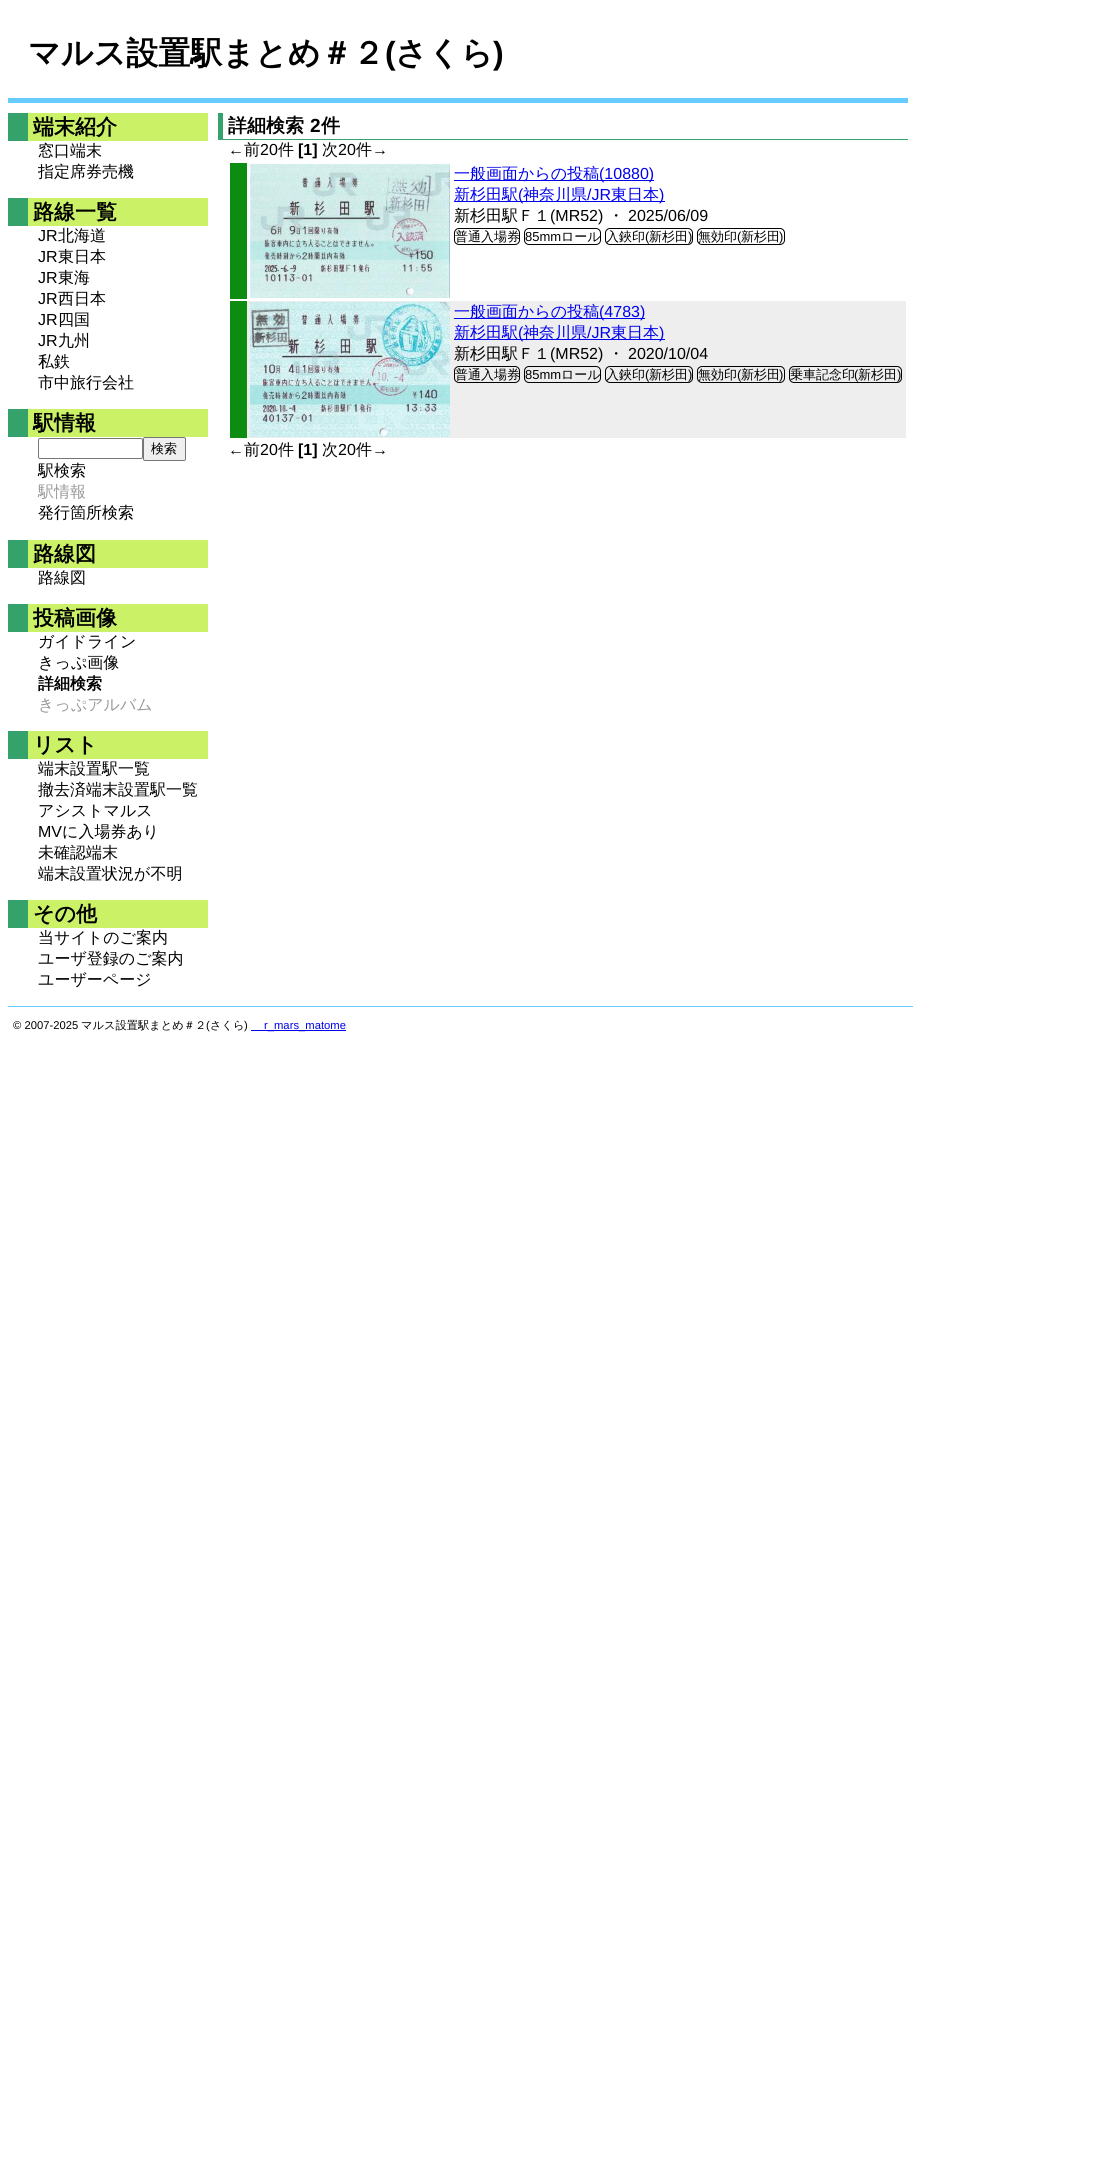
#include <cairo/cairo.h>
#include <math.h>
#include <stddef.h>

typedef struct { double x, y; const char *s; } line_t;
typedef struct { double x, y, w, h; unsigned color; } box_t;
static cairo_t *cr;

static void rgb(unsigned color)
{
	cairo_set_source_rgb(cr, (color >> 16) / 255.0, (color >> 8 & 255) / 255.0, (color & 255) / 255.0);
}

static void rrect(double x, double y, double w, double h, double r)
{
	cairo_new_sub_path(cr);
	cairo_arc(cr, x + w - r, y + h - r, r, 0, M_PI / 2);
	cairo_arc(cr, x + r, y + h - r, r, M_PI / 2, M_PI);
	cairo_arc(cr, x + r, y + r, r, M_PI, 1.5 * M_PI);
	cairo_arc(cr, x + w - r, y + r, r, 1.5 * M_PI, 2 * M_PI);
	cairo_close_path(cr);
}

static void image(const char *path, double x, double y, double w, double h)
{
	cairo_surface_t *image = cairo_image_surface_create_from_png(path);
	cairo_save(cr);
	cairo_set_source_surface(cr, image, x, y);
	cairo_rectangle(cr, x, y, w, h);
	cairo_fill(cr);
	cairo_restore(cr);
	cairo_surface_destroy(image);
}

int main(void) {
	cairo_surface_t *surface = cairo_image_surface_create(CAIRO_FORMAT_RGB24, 1110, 2157);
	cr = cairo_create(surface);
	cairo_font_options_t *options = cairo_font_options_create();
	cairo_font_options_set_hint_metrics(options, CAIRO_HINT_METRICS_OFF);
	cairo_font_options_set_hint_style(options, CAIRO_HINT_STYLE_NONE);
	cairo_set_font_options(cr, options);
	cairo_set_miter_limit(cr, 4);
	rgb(0xffffff);
	cairo_paint(cr);
	{
		static const box_t items[] = {
			{8, 98, 900, 5, 0x66ccff},
			{28, 113, 180, 28, 0xcbf266},
			{8, 113, 20, 28, 0x35a16b},
			{28, 198, 180, 28, 0xcbf266},
			{8, 198, 20, 28, 0x35a16b},
			{28, 409, 180, 28, 0xcbf266},
			{8, 409, 20, 28, 0x35a16b},
		};
		for (size_t i = 0; i < sizeof items / sizeof *items; i++) {
			rgb(items[i].color);
			cairo_rectangle(cr, items[i].x, items[i].y, items[i].w, items[i].h);
			cairo_fill(cr);
		}
	}
	rrect(38.5, 438.5, 104, 20, 1.5);
	rgb(0x767676);
	cairo_set_line_width(cr, 1);
	cairo_stroke(cr);
	rgb(0xefefef);
	rrect(143.5, 437.5, 42, 23, 1.5);
	cairo_fill_preserve(cr);
	rgb(0x767676);
	cairo_stroke(cr);
	{
		static const box_t items[] = {
			{28, 540, 180, 28, 0xcbf266},
			{8, 540, 20, 28, 0x35a16b},
			{28, 604, 180, 28, 0xcbf266},
			{8, 604, 20, 28, 0x35a16b},
			{28, 731, 180, 28, 0xcbf266},
			{8, 731, 20, 28, 0x35a16b},
			{28, 900, 180, 28, 0xcbf266},
			{8, 900, 20, 28, 0x35a16b},
			{218, 139, 690, 1, 0x35a16b},
			{218, 113, 5, 27, 0x35a16b},
			{230, 163, 17, 136, 0x0c8c11},
		};
		for (size_t i = 0; i < sizeof items / sizeof *items; i++) {
			rgb(items[i].color);
			cairo_rectangle(cr, items[i].x, items[i].y, items[i].w, items[i].h);
			cairo_fill(cr);
		}
	}
	image("img/1.png", 250, 164, 200, 134);
	rgb(0x0000ee);
	cairo_rectangle(cr, 454, 180, 200, 1);
	cairo_fill(cr);
	cairo_rectangle(cr, 454, 201, 211, 1);
	cairo_fill(cr);
	rrect(454.5, 228.5, 65, 16, 4.5);
	rgb(0x000000);
	cairo_stroke(cr);
	rrect(524.5, 228.5, 76, 16, 4.5);
	cairo_stroke(cr);
	rrect(605.5, 228.5, 87, 16, 4.5);
	cairo_stroke(cr);
	rrect(697.5, 228.5, 87, 16, 4.5);
	cairo_stroke(cr);
	rgb(0xeeeeee);
	cairo_rectangle(cr, 247, 301, 659, 137);
	cairo_fill(cr);
	rgb(0x0c8c11);
	cairo_rectangle(cr, 230, 301, 17, 137);
	cairo_fill(cr);
	image("img/2.png", 250, 302, 200, 135);
	rgb(0x0000ee);
	cairo_rectangle(cr, 454, 318, 191, 1);
	cairo_fill(cr);
	cairo_rectangle(cr, 454, 339, 211, 1);
	cairo_fill(cr);
	rrect(454.5, 366.5, 65, 16, 4.5);
	rgb(0x000000);
	cairo_stroke(cr);
	rrect(524.5, 366.5, 76, 16, 4.5);
	cairo_stroke(cr);
	rrect(605.5, 366.5, 87, 16, 4.5);
	cairo_stroke(cr);
	rrect(697.5, 366.5, 87, 16, 4.5);
	cairo_stroke(cr);
	rrect(789.5, 366.5, 112, 16, 4.5);
	cairo_stroke(cr);
	rgb(0x66ccff);
	cairo_rectangle(cr, 8, 1006, 905, 1);
	cairo_fill(cr);
	rgb(0x0000ee);
	cairo_rectangle(cr, 251, 1030, 95, 1);
	cairo_fill(cr);
	cairo_select_font_face(cr, "WenQuanYi Zen Hei", CAIRO_FONT_SLANT_NORMAL, CAIRO_FONT_WEIGHT_BOLD);
	cairo_set_font_size(cr, 32);
	rgb(0x000000);
	cairo_move_to(cr, 28, 64);
	cairo_show_text(cr, "マルス設置駅まとめ＃２");
	cairo_select_font_face(cr, "Liberation Sans", CAIRO_FONT_SLANT_NORMAL, CAIRO_FONT_WEIGHT_BOLD);
	cairo_move_to(cr, 385, 64);
	cairo_show_text(cr, "(");
	cairo_select_font_face(cr, "WenQuanYi Zen Hei", CAIRO_FONT_SLANT_NORMAL, CAIRO_FONT_WEIGHT_BOLD);
	cairo_move_to(cr, 395, 64);
	cairo_show_text(cr, "さくら");
	cairo_select_font_face(cr, "Liberation Sans", CAIRO_FONT_SLANT_NORMAL, CAIRO_FONT_WEIGHT_BOLD);
	cairo_move_to(cr, 493, 64);
	cairo_show_text(cr, ")");
	cairo_select_font_face(cr, "WenQuanYi Zen Hei", CAIRO_FONT_SLANT_NORMAL, CAIRO_FONT_WEIGHT_BOLD);
	cairo_set_font_size(cr, 21);
	cairo_move_to(cr, 33, 134);
	cairo_show_text(cr, "端末紹介");
	cairo_select_font_face(cr, "WenQuanYi Zen Hei Medium", CAIRO_FONT_SLANT_NORMAL, CAIRO_FONT_WEIGHT_NORMAL);
	cairo_set_font_size(cr, 16);
	cairo_move_to(cr, 38, 156);
	cairo_show_text(cr, "窓口端末");
	cairo_move_to(cr, 38, 177);
	cairo_show_text(cr, "指定席券売機");
	cairo_select_font_face(cr, "WenQuanYi Zen Hei", CAIRO_FONT_SLANT_NORMAL, CAIRO_FONT_WEIGHT_BOLD);
	cairo_set_font_size(cr, 21);
	cairo_move_to(cr, 33, 219);
	cairo_show_text(cr, "路線一覧");
	cairo_select_font_face(cr, "Liberation Sans", CAIRO_FONT_SLANT_NORMAL, CAIRO_FONT_WEIGHT_NORMAL);
	cairo_set_font_size(cr, 16);
	cairo_move_to(cr, 38, 241);
	cairo_show_text(cr, "JR");
	cairo_select_font_face(cr, "WenQuanYi Zen Hei Medium", CAIRO_FONT_SLANT_NORMAL, CAIRO_FONT_WEIGHT_NORMAL);
	cairo_move_to(cr, 58, 241);
	cairo_show_text(cr, "北海道");
	cairo_select_font_face(cr, "Liberation Sans", CAIRO_FONT_SLANT_NORMAL, CAIRO_FONT_WEIGHT_NORMAL);
	cairo_move_to(cr, 38, 262);
	cairo_show_text(cr, "JR");
	cairo_select_font_face(cr, "WenQuanYi Zen Hei Medium", CAIRO_FONT_SLANT_NORMAL, CAIRO_FONT_WEIGHT_NORMAL);
	cairo_move_to(cr, 58, 262);
	cairo_show_text(cr, "東日本");
	cairo_select_font_face(cr, "Liberation Sans", CAIRO_FONT_SLANT_NORMAL, CAIRO_FONT_WEIGHT_NORMAL);
	cairo_move_to(cr, 38, 283);
	cairo_show_text(cr, "JR");
	cairo_select_font_face(cr, "WenQuanYi Zen Hei Medium", CAIRO_FONT_SLANT_NORMAL, CAIRO_FONT_WEIGHT_NORMAL);
	cairo_move_to(cr, 58, 283);
	cairo_show_text(cr, "東海");
	cairo_select_font_face(cr, "Liberation Sans", CAIRO_FONT_SLANT_NORMAL, CAIRO_FONT_WEIGHT_NORMAL);
	cairo_move_to(cr, 38, 304);
	cairo_show_text(cr, "JR");
	cairo_select_font_face(cr, "WenQuanYi Zen Hei Medium", CAIRO_FONT_SLANT_NORMAL, CAIRO_FONT_WEIGHT_NORMAL);
	cairo_move_to(cr, 58, 304);
	cairo_show_text(cr, "西日本");
	cairo_select_font_face(cr, "Liberation Sans", CAIRO_FONT_SLANT_NORMAL, CAIRO_FONT_WEIGHT_NORMAL);
	cairo_move_to(cr, 38, 325);
	cairo_show_text(cr, "JR");
	cairo_select_font_face(cr, "WenQuanYi Zen Hei Medium", CAIRO_FONT_SLANT_NORMAL, CAIRO_FONT_WEIGHT_NORMAL);
	cairo_move_to(cr, 58, 325);
	cairo_show_text(cr, "四国");
	cairo_select_font_face(cr, "Liberation Sans", CAIRO_FONT_SLANT_NORMAL, CAIRO_FONT_WEIGHT_NORMAL);
	cairo_move_to(cr, 38, 346);
	cairo_show_text(cr, "JR");
	cairo_select_font_face(cr, "WenQuanYi Zen Hei Medium", CAIRO_FONT_SLANT_NORMAL, CAIRO_FONT_WEIGHT_NORMAL);
	{
		static const line_t items[] = {
			{58, 346, "九州"},
			{38, 367, "私鉄"},
			{38, 388, "市中旅行会社"},
		};
		for (size_t i = 0; i < sizeof items / sizeof *items; i++) {
			cairo_move_to(cr, items[i].x, items[i].y);
			cairo_show_text(cr, items[i].s);
		}
	}
	cairo_select_font_face(cr, "WenQuanYi Zen Hei", CAIRO_FONT_SLANT_NORMAL, CAIRO_FONT_WEIGHT_BOLD);
	cairo_set_font_size(cr, 21);
	cairo_move_to(cr, 33, 430);
	cairo_show_text(cr, "駅情報");
	cairo_select_font_face(cr, "WenQuanYi Zen Hei Medium", CAIRO_FONT_SLANT_NORMAL, CAIRO_FONT_WEIGHT_NORMAL);
	cairo_set_font_size(cr, 13);
	cairo_move_to(cr, 151, 453);
	cairo_show_text(cr, "検索");
	cairo_set_font_size(cr, 16);
	cairo_move_to(cr, 38, 476);
	cairo_show_text(cr, "駅検索");
	rgb(0x999999);
	cairo_move_to(cr, 38, 497);
	cairo_show_text(cr, "駅情報");
	rgb(0x000000);
	cairo_move_to(cr, 38, 518);
	cairo_show_text(cr, "発行箇所検索");
	cairo_select_font_face(cr, "WenQuanYi Zen Hei", CAIRO_FONT_SLANT_NORMAL, CAIRO_FONT_WEIGHT_BOLD);
	cairo_set_font_size(cr, 21);
	cairo_move_to(cr, 33, 561);
	cairo_show_text(cr, "路線図");
	cairo_select_font_face(cr, "WenQuanYi Zen Hei Medium", CAIRO_FONT_SLANT_NORMAL, CAIRO_FONT_WEIGHT_NORMAL);
	cairo_set_font_size(cr, 16);
	cairo_move_to(cr, 38, 583);
	cairo_show_text(cr, "路線図");
	cairo_select_font_face(cr, "WenQuanYi Zen Hei", CAIRO_FONT_SLANT_NORMAL, CAIRO_FONT_WEIGHT_BOLD);
	cairo_set_font_size(cr, 21);
	cairo_move_to(cr, 33, 625);
	cairo_show_text(cr, "投稿画像");
	cairo_select_font_face(cr, "WenQuanYi Zen Hei Medium", CAIRO_FONT_SLANT_NORMAL, CAIRO_FONT_WEIGHT_NORMAL);
	cairo_set_font_size(cr, 16);
	cairo_move_to(cr, 38, 647);
	cairo_show_text(cr, "ガイドライン");
	cairo_move_to(cr, 38, 668);
	cairo_show_text(cr, "きっぷ画像");
	cairo_select_font_face(cr, "WenQuanYi Zen Hei", CAIRO_FONT_SLANT_NORMAL, CAIRO_FONT_WEIGHT_BOLD);
	cairo_move_to(cr, 38, 689);
	cairo_show_text(cr, "詳細検索");
	cairo_select_font_face(cr, "WenQuanYi Zen Hei Medium", CAIRO_FONT_SLANT_NORMAL, CAIRO_FONT_WEIGHT_NORMAL);
	rgb(0x999999);
	cairo_move_to(cr, 38, 710);
	cairo_show_text(cr, "きっぷアルバム");
	cairo_select_font_face(cr, "WenQuanYi Zen Hei", CAIRO_FONT_SLANT_NORMAL, CAIRO_FONT_WEIGHT_BOLD);
	cairo_set_font_size(cr, 21);
	rgb(0x000000);
	cairo_move_to(cr, 33, 752);
	cairo_show_text(cr, "リスト");
	cairo_select_font_face(cr, "WenQuanYi Zen Hei Medium", CAIRO_FONT_SLANT_NORMAL, CAIRO_FONT_WEIGHT_NORMAL);
	cairo_set_font_size(cr, 16);
	{
		static const line_t items[] = {
			{38, 774, "端末設置駅一覧"},
			{38, 795, "撤去済端末設置駅一覧"},
			{38, 816, "アシストマルス"},
		};
		for (size_t i = 0; i < sizeof items / sizeof *items; i++) {
			cairo_move_to(cr, items[i].x, items[i].y);
			cairo_show_text(cr, items[i].s);
		}
	}
	cairo_select_font_face(cr, "Liberation Sans", CAIRO_FONT_SLANT_NORMAL, CAIRO_FONT_WEIGHT_NORMAL);
	cairo_move_to(cr, 38, 837);
	cairo_show_text(cr, "MV");
	cairo_select_font_face(cr, "WenQuanYi Zen Hei Medium", CAIRO_FONT_SLANT_NORMAL, CAIRO_FONT_WEIGHT_NORMAL);
	{
		static const line_t items[] = {
			{62, 837, "に入場券あり"},
			{38, 858, "未確認端末"},
			{38, 879, "端末設置状況が不明"},
		};
		for (size_t i = 0; i < sizeof items / sizeof *items; i++) {
			cairo_move_to(cr, items[i].x, items[i].y);
			cairo_show_text(cr, items[i].s);
		}
	}
	cairo_select_font_face(cr, "WenQuanYi Zen Hei", CAIRO_FONT_SLANT_NORMAL, CAIRO_FONT_WEIGHT_BOLD);
	cairo_set_font_size(cr, 21);
	cairo_move_to(cr, 33, 921);
	cairo_show_text(cr, "その他");
	cairo_select_font_face(cr, "WenQuanYi Zen Hei Medium", CAIRO_FONT_SLANT_NORMAL, CAIRO_FONT_WEIGHT_NORMAL);
	cairo_set_font_size(cr, 16);
	{
		static const line_t items[] = {
			{38, 943, "当サイトのご案内"},
			{38, 964, "ユーザ登録のご案内"},
			{38, 985, "ユーザーページ"},
		};
		for (size_t i = 0; i < sizeof items / sizeof *items; i++) {
			cairo_move_to(cr, items[i].x, items[i].y);
			cairo_show_text(cr, items[i].s);
		}
	}
	cairo_select_font_face(cr, "WenQuanYi Zen Hei", CAIRO_FONT_SLANT_NORMAL, CAIRO_FONT_WEIGHT_BOLD);
	cairo_set_font_size(cr, 19);
	cairo_move_to(cr, 228, 132);
	cairo_show_text(cr, "詳細検索");
	cairo_select_font_face(cr, "Liberation Sans", CAIRO_FONT_SLANT_NORMAL, CAIRO_FONT_WEIGHT_BOLD);
	cairo_move_to(cr, 310, 132);
	cairo_show_text(cr, "2");
	cairo_select_font_face(cr, "WenQuanYi Zen Hei", CAIRO_FONT_SLANT_NORMAL, CAIRO_FONT_WEIGHT_BOLD);
	cairo_move_to(cr, 321, 132);
	cairo_show_text(cr, "件");
	cairo_select_font_face(cr, "Liberation Sans", CAIRO_FONT_SLANT_NORMAL, CAIRO_FONT_WEIGHT_NORMAL);
	cairo_set_font_size(cr, 16);
	cairo_move_to(cr, 228, 155);
	cairo_show_text(cr, "←");
	cairo_select_font_face(cr, "WenQuanYi Zen Hei Medium", CAIRO_FONT_SLANT_NORMAL, CAIRO_FONT_WEIGHT_NORMAL);
	cairo_move_to(cr, 244, 155);
	cairo_show_text(cr, "前");
	cairo_select_font_face(cr, "Liberation Sans", CAIRO_FONT_SLANT_NORMAL, CAIRO_FONT_WEIGHT_NORMAL);
	cairo_move_to(cr, 260, 155);
	cairo_show_text(cr, "20");
	cairo_select_font_face(cr, "WenQuanYi Zen Hei Medium", CAIRO_FONT_SLANT_NORMAL, CAIRO_FONT_WEIGHT_NORMAL);
	cairo_move_to(cr, 278, 155);
	cairo_show_text(cr, "件");
	cairo_select_font_face(cr, "Liberation Sans", CAIRO_FONT_SLANT_NORMAL, CAIRO_FONT_WEIGHT_BOLD);
	cairo_move_to(cr, 298, 155);
	cairo_show_text(cr, "[1]");
	cairo_select_font_face(cr, "WenQuanYi Zen Hei Medium", CAIRO_FONT_SLANT_NORMAL, CAIRO_FONT_WEIGHT_NORMAL);
	cairo_move_to(cr, 322, 155);
	cairo_show_text(cr, "次");
	cairo_select_font_face(cr, "Liberation Sans", CAIRO_FONT_SLANT_NORMAL, CAIRO_FONT_WEIGHT_NORMAL);
	cairo_move_to(cr, 338, 155);
	cairo_show_text(cr, "20");
	cairo_select_font_face(cr, "WenQuanYi Zen Hei Medium", CAIRO_FONT_SLANT_NORMAL, CAIRO_FONT_WEIGHT_NORMAL);
	cairo_move_to(cr, 356, 155);
	cairo_show_text(cr, "件");
	cairo_select_font_face(cr, "Liberation Sans", CAIRO_FONT_SLANT_NORMAL, CAIRO_FONT_WEIGHT_NORMAL);
	cairo_move_to(cr, 372, 155);
	cairo_show_text(cr, "→");
	cairo_select_font_face(cr, "WenQuanYi Zen Hei Medium", CAIRO_FONT_SLANT_NORMAL, CAIRO_FONT_WEIGHT_NORMAL);
	rgb(0x0000ee);
	cairo_move_to(cr, 454, 179);
	cairo_show_text(cr, "一般画面からの投稿");
	cairo_select_font_face(cr, "Liberation Sans", CAIRO_FONT_SLANT_NORMAL, CAIRO_FONT_WEIGHT_NORMAL);
	cairo_move_to(cr, 599, 179);
	cairo_show_text(cr, "(10880)");
	cairo_select_font_face(cr, "WenQuanYi Zen Hei Medium", CAIRO_FONT_SLANT_NORMAL, CAIRO_FONT_WEIGHT_NORMAL);
	cairo_move_to(cr, 454, 200);
	cairo_show_text(cr, "新杉田駅");
	cairo_select_font_face(cr, "Liberation Sans", CAIRO_FONT_SLANT_NORMAL, CAIRO_FONT_WEIGHT_NORMAL);
	cairo_move_to(cr, 518, 200);
	cairo_show_text(cr, "(");
	cairo_select_font_face(cr, "WenQuanYi Zen Hei Medium", CAIRO_FONT_SLANT_NORMAL, CAIRO_FONT_WEIGHT_NORMAL);
	cairo_move_to(cr, 523, 200);
	cairo_show_text(cr, "神奈川県");
	cairo_select_font_face(cr, "Liberation Sans", CAIRO_FONT_SLANT_NORMAL, CAIRO_FONT_WEIGHT_NORMAL);
	cairo_move_to(cr, 587, 200);
	cairo_show_text(cr, "/JR");
	cairo_select_font_face(cr, "WenQuanYi Zen Hei Medium", CAIRO_FONT_SLANT_NORMAL, CAIRO_FONT_WEIGHT_NORMAL);
	cairo_move_to(cr, 611, 200);
	cairo_show_text(cr, "東日本");
	cairo_select_font_face(cr, "Liberation Sans", CAIRO_FONT_SLANT_NORMAL, CAIRO_FONT_WEIGHT_NORMAL);
	cairo_move_to(cr, 659, 200);
	cairo_show_text(cr, ")");
	cairo_select_font_face(cr, "WenQuanYi Zen Hei Medium", CAIRO_FONT_SLANT_NORMAL, CAIRO_FONT_WEIGHT_NORMAL);
	rgb(0x000000);
	cairo_move_to(cr, 454, 221);
	cairo_show_text(cr, "新杉田駅Ｆ１");
	cairo_select_font_face(cr, "Liberation Sans", CAIRO_FONT_SLANT_NORMAL, CAIRO_FONT_WEIGHT_NORMAL);
	cairo_move_to(cr, 550, 221);
	cairo_show_text(cr, "(MR52)");
	cairo_select_font_face(cr, "WenQuanYi Zen Hei Medium", CAIRO_FONT_SLANT_NORMAL, CAIRO_FONT_WEIGHT_NORMAL);
	cairo_move_to(cr, 608, 221);
	cairo_show_text(cr, "・");
	cairo_select_font_face(cr, "Liberation Sans", CAIRO_FONT_SLANT_NORMAL, CAIRO_FONT_WEIGHT_NORMAL);
	cairo_move_to(cr, 628, 221);
	cairo_show_text(cr, "2025/06/09");
	cairo_select_font_face(cr, "WenQuanYi Zen Hei Medium", CAIRO_FONT_SLANT_NORMAL, CAIRO_FONT_WEIGHT_NORMAL);
	cairo_set_font_size(cr, 13);
	cairo_move_to(cr, 455, 241);
	cairo_show_text(cr, "普通入場券");
	cairo_select_font_face(cr, "Liberation Sans", CAIRO_FONT_SLANT_NORMAL, CAIRO_FONT_WEIGHT_NORMAL);
	cairo_move_to(cr, 525, 241);
	cairo_show_text(cr, "85mm");
	cairo_select_font_face(cr, "WenQuanYi Zen Hei Medium", CAIRO_FONT_SLANT_NORMAL, CAIRO_FONT_WEIGHT_NORMAL);
	cairo_move_to(cr, 561, 241);
	cairo_show_text(cr, "ロール");
	cairo_move_to(cr, 606, 241);
	cairo_show_text(cr, "入鋏印");
	cairo_select_font_face(cr, "Liberation Sans", CAIRO_FONT_SLANT_NORMAL, CAIRO_FONT_WEIGHT_NORMAL);
	cairo_move_to(cr, 645, 241);
	cairo_show_text(cr, "(");
	cairo_select_font_face(cr, "WenQuanYi Zen Hei Medium", CAIRO_FONT_SLANT_NORMAL, CAIRO_FONT_WEIGHT_NORMAL);
	cairo_move_to(cr, 649, 241);
	cairo_show_text(cr, "新杉田");
	cairo_select_font_face(cr, "Liberation Sans", CAIRO_FONT_SLANT_NORMAL, CAIRO_FONT_WEIGHT_NORMAL);
	cairo_move_to(cr, 688, 241);
	cairo_show_text(cr, ")");
	cairo_select_font_face(cr, "WenQuanYi Zen Hei Medium", CAIRO_FONT_SLANT_NORMAL, CAIRO_FONT_WEIGHT_NORMAL);
	cairo_move_to(cr, 698, 241);
	cairo_show_text(cr, "無効印");
	cairo_select_font_face(cr, "Liberation Sans", CAIRO_FONT_SLANT_NORMAL, CAIRO_FONT_WEIGHT_NORMAL);
	cairo_move_to(cr, 737, 241);
	cairo_show_text(cr, "(");
	cairo_select_font_face(cr, "WenQuanYi Zen Hei Medium", CAIRO_FONT_SLANT_NORMAL, CAIRO_FONT_WEIGHT_NORMAL);
	cairo_move_to(cr, 741, 241);
	cairo_show_text(cr, "新杉田");
	cairo_select_font_face(cr, "Liberation Sans", CAIRO_FONT_SLANT_NORMAL, CAIRO_FONT_WEIGHT_NORMAL);
	cairo_move_to(cr, 779, 241);
	cairo_show_text(cr, ")");
	cairo_select_font_face(cr, "WenQuanYi Zen Hei Medium", CAIRO_FONT_SLANT_NORMAL, CAIRO_FONT_WEIGHT_NORMAL);
	cairo_set_font_size(cr, 16);
	rgb(0x0000ee);
	cairo_move_to(cr, 454, 317);
	cairo_show_text(cr, "一般画面からの投稿");
	cairo_select_font_face(cr, "Liberation Sans", CAIRO_FONT_SLANT_NORMAL, CAIRO_FONT_WEIGHT_NORMAL);
	cairo_move_to(cr, 599, 317);
	cairo_show_text(cr, "(4783)");
	cairo_select_font_face(cr, "WenQuanYi Zen Hei Medium", CAIRO_FONT_SLANT_NORMAL, CAIRO_FONT_WEIGHT_NORMAL);
	cairo_move_to(cr, 454, 338);
	cairo_show_text(cr, "新杉田駅");
	cairo_select_font_face(cr, "Liberation Sans", CAIRO_FONT_SLANT_NORMAL, CAIRO_FONT_WEIGHT_NORMAL);
	cairo_move_to(cr, 518, 338);
	cairo_show_text(cr, "(");
	cairo_select_font_face(cr, "WenQuanYi Zen Hei Medium", CAIRO_FONT_SLANT_NORMAL, CAIRO_FONT_WEIGHT_NORMAL);
	cairo_move_to(cr, 523, 338);
	cairo_show_text(cr, "神奈川県");
	cairo_select_font_face(cr, "Liberation Sans", CAIRO_FONT_SLANT_NORMAL, CAIRO_FONT_WEIGHT_NORMAL);
	cairo_move_to(cr, 587, 338);
	cairo_show_text(cr, "/JR");
	cairo_select_font_face(cr, "WenQuanYi Zen Hei Medium", CAIRO_FONT_SLANT_NORMAL, CAIRO_FONT_WEIGHT_NORMAL);
	cairo_move_to(cr, 611, 338);
	cairo_show_text(cr, "東日本");
	cairo_select_font_face(cr, "Liberation Sans", CAIRO_FONT_SLANT_NORMAL, CAIRO_FONT_WEIGHT_NORMAL);
	cairo_move_to(cr, 659, 338);
	cairo_show_text(cr, ")");
	cairo_select_font_face(cr, "WenQuanYi Zen Hei Medium", CAIRO_FONT_SLANT_NORMAL, CAIRO_FONT_WEIGHT_NORMAL);
	rgb(0x000000);
	cairo_move_to(cr, 454, 359);
	cairo_show_text(cr, "新杉田駅Ｆ１");
	cairo_select_font_face(cr, "Liberation Sans", CAIRO_FONT_SLANT_NORMAL, CAIRO_FONT_WEIGHT_NORMAL);
	cairo_move_to(cr, 550, 359);
	cairo_show_text(cr, "(MR52)");
	cairo_select_font_face(cr, "WenQuanYi Zen Hei Medium", CAIRO_FONT_SLANT_NORMAL, CAIRO_FONT_WEIGHT_NORMAL);
	cairo_move_to(cr, 608, 359);
	cairo_show_text(cr, "・");
	cairo_select_font_face(cr, "Liberation Sans", CAIRO_FONT_SLANT_NORMAL, CAIRO_FONT_WEIGHT_NORMAL);
	cairo_move_to(cr, 628, 359);
	cairo_show_text(cr, "2020/10/04");
	cairo_select_font_face(cr, "WenQuanYi Zen Hei Medium", CAIRO_FONT_SLANT_NORMAL, CAIRO_FONT_WEIGHT_NORMAL);
	cairo_set_font_size(cr, 13);
	cairo_move_to(cr, 455, 379);
	cairo_show_text(cr, "普通入場券");
	cairo_select_font_face(cr, "Liberation Sans", CAIRO_FONT_SLANT_NORMAL, CAIRO_FONT_WEIGHT_NORMAL);
	cairo_move_to(cr, 525, 379);
	cairo_show_text(cr, "85mm");
	cairo_select_font_face(cr, "WenQuanYi Zen Hei Medium", CAIRO_FONT_SLANT_NORMAL, CAIRO_FONT_WEIGHT_NORMAL);
	cairo_move_to(cr, 561, 379);
	cairo_show_text(cr, "ロール");
	cairo_move_to(cr, 606, 379);
	cairo_show_text(cr, "入鋏印");
	cairo_select_font_face(cr, "Liberation Sans", CAIRO_FONT_SLANT_NORMAL, CAIRO_FONT_WEIGHT_NORMAL);
	cairo_move_to(cr, 645, 379);
	cairo_show_text(cr, "(");
	cairo_select_font_face(cr, "WenQuanYi Zen Hei Medium", CAIRO_FONT_SLANT_NORMAL, CAIRO_FONT_WEIGHT_NORMAL);
	cairo_move_to(cr, 649, 379);
	cairo_show_text(cr, "新杉田");
	cairo_select_font_face(cr, "Liberation Sans", CAIRO_FONT_SLANT_NORMAL, CAIRO_FONT_WEIGHT_NORMAL);
	cairo_move_to(cr, 688, 379);
	cairo_show_text(cr, ")");
	cairo_select_font_face(cr, "WenQuanYi Zen Hei Medium", CAIRO_FONT_SLANT_NORMAL, CAIRO_FONT_WEIGHT_NORMAL);
	cairo_move_to(cr, 698, 379);
	cairo_show_text(cr, "無効印");
	cairo_select_font_face(cr, "Liberation Sans", CAIRO_FONT_SLANT_NORMAL, CAIRO_FONT_WEIGHT_NORMAL);
	cairo_move_to(cr, 737, 379);
	cairo_show_text(cr, "(");
	cairo_select_font_face(cr, "WenQuanYi Zen Hei Medium", CAIRO_FONT_SLANT_NORMAL, CAIRO_FONT_WEIGHT_NORMAL);
	cairo_move_to(cr, 741, 379);
	cairo_show_text(cr, "新杉田");
	cairo_select_font_face(cr, "Liberation Sans", CAIRO_FONT_SLANT_NORMAL, CAIRO_FONT_WEIGHT_NORMAL);
	cairo_move_to(cr, 779, 379);
	cairo_show_text(cr, ")");
	cairo_select_font_face(cr, "WenQuanYi Zen Hei Medium", CAIRO_FONT_SLANT_NORMAL, CAIRO_FONT_WEIGHT_NORMAL);
	cairo_move_to(cr, 790, 379);
	cairo_show_text(cr, "乗車記念印");
	cairo_select_font_face(cr, "Liberation Sans", CAIRO_FONT_SLANT_NORMAL, CAIRO_FONT_WEIGHT_NORMAL);
	cairo_move_to(cr, 854, 379);
	cairo_show_text(cr, "(");
	cairo_select_font_face(cr, "WenQuanYi Zen Hei Medium", CAIRO_FONT_SLANT_NORMAL, CAIRO_FONT_WEIGHT_NORMAL);
	cairo_move_to(cr, 858, 379);
	cairo_show_text(cr, "新杉田");
	cairo_select_font_face(cr, "Liberation Sans", CAIRO_FONT_SLANT_NORMAL, CAIRO_FONT_WEIGHT_NORMAL);
	cairo_move_to(cr, 897, 379);
	cairo_show_text(cr, ")");
	cairo_set_font_size(cr, 16);
	cairo_move_to(cr, 228, 455);
	cairo_show_text(cr, "←");
	cairo_select_font_face(cr, "WenQuanYi Zen Hei Medium", CAIRO_FONT_SLANT_NORMAL, CAIRO_FONT_WEIGHT_NORMAL);
	cairo_move_to(cr, 244, 455);
	cairo_show_text(cr, "前");
	cairo_select_font_face(cr, "Liberation Sans", CAIRO_FONT_SLANT_NORMAL, CAIRO_FONT_WEIGHT_NORMAL);
	cairo_move_to(cr, 260, 455);
	cairo_show_text(cr, "20");
	cairo_select_font_face(cr, "WenQuanYi Zen Hei Medium", CAIRO_FONT_SLANT_NORMAL, CAIRO_FONT_WEIGHT_NORMAL);
	cairo_move_to(cr, 278, 455);
	cairo_show_text(cr, "件");
	cairo_select_font_face(cr, "Liberation Sans", CAIRO_FONT_SLANT_NORMAL, CAIRO_FONT_WEIGHT_BOLD);
	cairo_move_to(cr, 298, 455);
	cairo_show_text(cr, "[1]");
	cairo_select_font_face(cr, "WenQuanYi Zen Hei Medium", CAIRO_FONT_SLANT_NORMAL, CAIRO_FONT_WEIGHT_NORMAL);
	cairo_move_to(cr, 322, 455);
	cairo_show_text(cr, "次");
	cairo_select_font_face(cr, "Liberation Sans", CAIRO_FONT_SLANT_NORMAL, CAIRO_FONT_WEIGHT_NORMAL);
	cairo_move_to(cr, 338, 455);
	cairo_show_text(cr, "20");
	cairo_select_font_face(cr, "WenQuanYi Zen Hei Medium", CAIRO_FONT_SLANT_NORMAL, CAIRO_FONT_WEIGHT_NORMAL);
	cairo_move_to(cr, 356, 455);
	cairo_show_text(cr, "件");
	cairo_select_font_face(cr, "Liberation Sans", CAIRO_FONT_SLANT_NORMAL, CAIRO_FONT_WEIGHT_NORMAL);
	cairo_move_to(cr, 372, 455);
	cairo_show_text(cr, "→");
	cairo_set_font_size(cr, 11.25);
	cairo_move_to(cr, 13, 1029);
	cairo_show_text(cr, "© 2007-2025");
	cairo_select_font_face(cr, "WenQuanYi Zen Hei Medium", CAIRO_FONT_SLANT_NORMAL, CAIRO_FONT_WEIGHT_NORMAL);
	cairo_move_to(cr, 81, 1029);
	cairo_show_text(cr, "マルス設置駅まとめ＃２");
	cairo_select_font_face(cr, "Liberation Sans", CAIRO_FONT_SLANT_NORMAL, CAIRO_FONT_WEIGHT_NORMAL);
	cairo_move_to(cr, 206, 1029);
	cairo_show_text(cr, "(");
	cairo_select_font_face(cr, "WenQuanYi Zen Hei Medium", CAIRO_FONT_SLANT_NORMAL, CAIRO_FONT_WEIGHT_NORMAL);
	cairo_move_to(cr, 210, 1029);
	cairo_show_text(cr, "さくら");
	cairo_select_font_face(cr, "Liberation Sans", CAIRO_FONT_SLANT_NORMAL, CAIRO_FONT_WEIGHT_NORMAL);
	cairo_move_to(cr, 244, 1029);
	cairo_show_text(cr, ")");
	rgb(0x0000ee);
	cairo_move_to(cr, 264, 1029);
	cairo_show_text(cr, "r_mars_matome");
	cairo_surface_write_to_png(surface, "page.png");
	cairo_font_options_destroy(options);
	cairo_destroy(cr);
	cairo_surface_destroy(surface);
	return 0;
}
